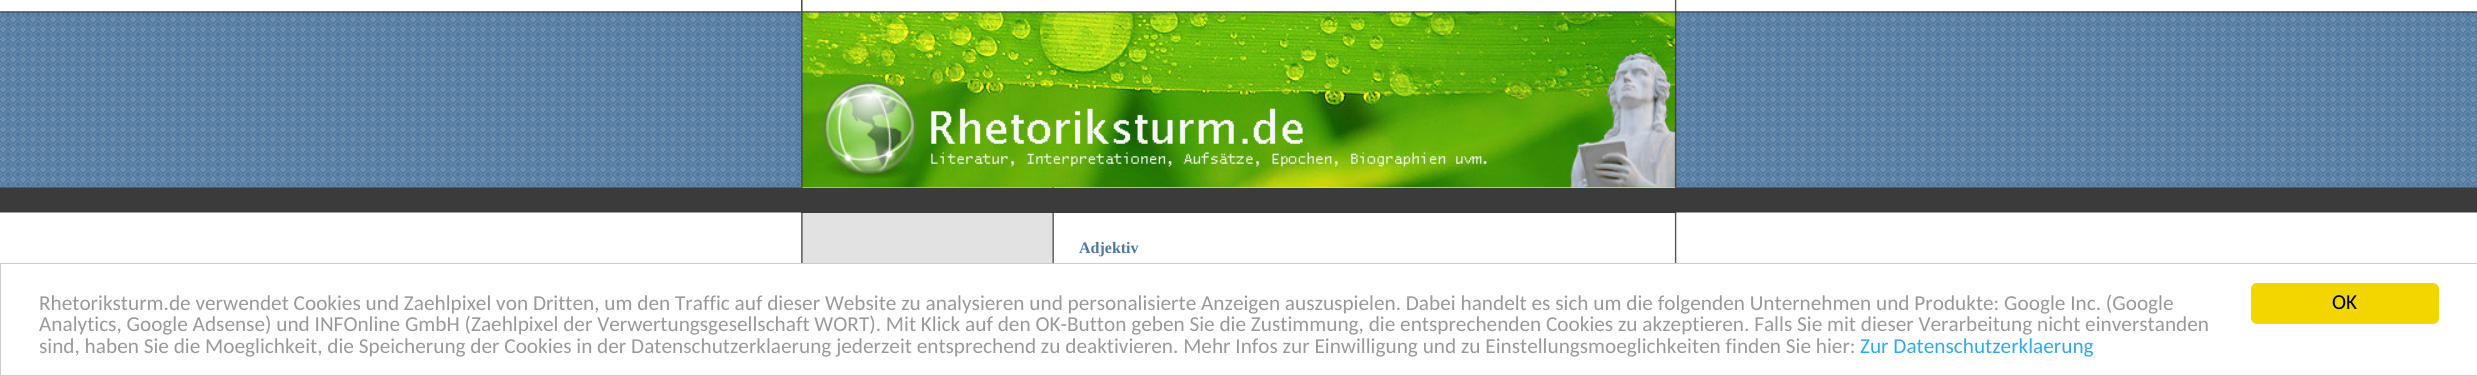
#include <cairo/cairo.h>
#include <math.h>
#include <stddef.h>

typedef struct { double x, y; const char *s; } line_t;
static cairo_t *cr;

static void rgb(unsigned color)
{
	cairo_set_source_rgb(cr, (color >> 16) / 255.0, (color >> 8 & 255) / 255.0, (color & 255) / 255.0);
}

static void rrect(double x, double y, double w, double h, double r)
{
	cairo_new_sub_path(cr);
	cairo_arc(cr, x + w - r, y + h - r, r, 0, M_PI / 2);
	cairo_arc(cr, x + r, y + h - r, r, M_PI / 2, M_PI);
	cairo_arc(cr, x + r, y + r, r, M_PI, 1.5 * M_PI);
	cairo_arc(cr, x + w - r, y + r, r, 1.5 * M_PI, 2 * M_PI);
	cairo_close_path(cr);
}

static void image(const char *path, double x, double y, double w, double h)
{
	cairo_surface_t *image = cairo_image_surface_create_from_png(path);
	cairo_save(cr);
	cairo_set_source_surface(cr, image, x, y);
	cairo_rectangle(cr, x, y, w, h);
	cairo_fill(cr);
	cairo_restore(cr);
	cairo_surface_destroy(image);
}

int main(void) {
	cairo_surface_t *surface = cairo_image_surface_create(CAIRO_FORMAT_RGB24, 2477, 376);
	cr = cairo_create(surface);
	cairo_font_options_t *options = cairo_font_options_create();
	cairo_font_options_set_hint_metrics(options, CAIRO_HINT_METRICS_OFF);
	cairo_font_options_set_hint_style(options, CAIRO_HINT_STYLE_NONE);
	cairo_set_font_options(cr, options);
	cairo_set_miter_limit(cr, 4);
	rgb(0xffffff);
	cairo_paint(cr);
	image("img/1.png", 0, 11, 2477, 202);
	rgb(0x69b10a);
	cairo_rectangle(cr, 801, 0, 875, 188);
	cairo_fill(cr);
	image("img/2.png", 801, 0, 876, 188);
	image("img/3.png", 801, 187, 876, 76);
	rgb(0x3b3b3b);
	cairo_rectangle(cr, 801, 188, 875, 25);
	cairo_fill(cr);
	cairo_rectangle(cr, 0.5, 263.5, 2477, 112);
	rgb(0xcccccc);
	cairo_set_line_width(cr, 1);
	cairo_stroke(cr);
	rgb(0xf1d600);
	rrect(2251, 283, 188, 41, 6);
	cairo_fill(cr);
	cairo_select_font_face(cr, "Liberation Serif", CAIRO_FONT_SLANT_NORMAL, CAIRO_FONT_WEIGHT_BOLD);
	cairo_set_font_size(cr, 16);
	rgb(0x4f789f);
	cairo_move_to(cr, 1079, 253);
	cairo_show_text(cr, "Adjektiv");
	cairo_select_font_face(cr, "Carlito", CAIRO_FONT_SLANT_NORMAL, CAIRO_FONT_WEIGHT_NORMAL);
	cairo_set_font_size(cr, 21.25);
	rgb(0x999999);
	{
		static const line_t items[] = {
			{39, 310, "Rhetoriksturm.de verwendet Cookies und Zaehlpixel von Dritten, um den Traffic auf dieser Website zu analysieren und personalisierte Anzeigen auszuspielen. Dabei handelt es sich um die folgenden Unternehmen und Produkte: Google Inc. (Google"},
			{39, 331, "Analytics, Google Adsense) und INFOnline GmbH (Zaehlpixel der Verwertungsgesellschaft WORT). Mit Klick auf den OK-Button geben Sie die Zustimmung, die entsprechenden Cookies zu akzeptieren. Falls Sie mit dieser Verarbeitung nicht einverstanden"},
			{39, 353, "sind, haben Sie die Moeglichkeit, die Speicherung der Cookies in der Datenschutzerklaerung jederzeit entsprechend zu deaktivieren. Mehr Infos zur Einwilligung und zu Einstellungsmoeglichkeiten finden Sie hier:"},
		};
		for (size_t i = 0; i < sizeof items / sizeof *items; i++) {
			cairo_move_to(cr, items[i].x, items[i].y);
			cairo_show_text(cr, items[i].s);
		}
	}
	rgb(0x31a8f0);
	cairo_move_to(cr, 1860, 353);
	cairo_show_text(cr, "Zur Datenschutzerklaerung");
	rgb(0x000000);
	cairo_move_to(cr, 2332, 309);
	cairo_show_text(cr, "OK");
	cairo_surface_write_to_png(surface, "page.png");
	cairo_font_options_destroy(options);
	cairo_destroy(cr);
	cairo_surface_destroy(surface);
	return 0;
}
